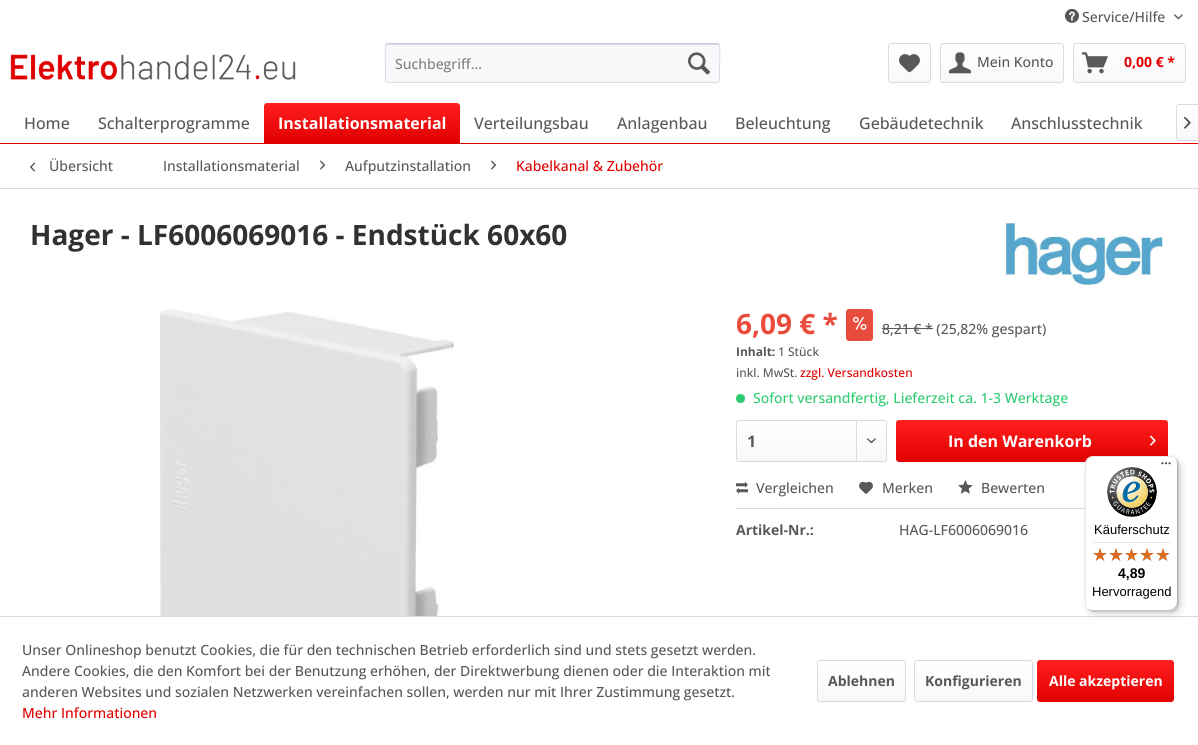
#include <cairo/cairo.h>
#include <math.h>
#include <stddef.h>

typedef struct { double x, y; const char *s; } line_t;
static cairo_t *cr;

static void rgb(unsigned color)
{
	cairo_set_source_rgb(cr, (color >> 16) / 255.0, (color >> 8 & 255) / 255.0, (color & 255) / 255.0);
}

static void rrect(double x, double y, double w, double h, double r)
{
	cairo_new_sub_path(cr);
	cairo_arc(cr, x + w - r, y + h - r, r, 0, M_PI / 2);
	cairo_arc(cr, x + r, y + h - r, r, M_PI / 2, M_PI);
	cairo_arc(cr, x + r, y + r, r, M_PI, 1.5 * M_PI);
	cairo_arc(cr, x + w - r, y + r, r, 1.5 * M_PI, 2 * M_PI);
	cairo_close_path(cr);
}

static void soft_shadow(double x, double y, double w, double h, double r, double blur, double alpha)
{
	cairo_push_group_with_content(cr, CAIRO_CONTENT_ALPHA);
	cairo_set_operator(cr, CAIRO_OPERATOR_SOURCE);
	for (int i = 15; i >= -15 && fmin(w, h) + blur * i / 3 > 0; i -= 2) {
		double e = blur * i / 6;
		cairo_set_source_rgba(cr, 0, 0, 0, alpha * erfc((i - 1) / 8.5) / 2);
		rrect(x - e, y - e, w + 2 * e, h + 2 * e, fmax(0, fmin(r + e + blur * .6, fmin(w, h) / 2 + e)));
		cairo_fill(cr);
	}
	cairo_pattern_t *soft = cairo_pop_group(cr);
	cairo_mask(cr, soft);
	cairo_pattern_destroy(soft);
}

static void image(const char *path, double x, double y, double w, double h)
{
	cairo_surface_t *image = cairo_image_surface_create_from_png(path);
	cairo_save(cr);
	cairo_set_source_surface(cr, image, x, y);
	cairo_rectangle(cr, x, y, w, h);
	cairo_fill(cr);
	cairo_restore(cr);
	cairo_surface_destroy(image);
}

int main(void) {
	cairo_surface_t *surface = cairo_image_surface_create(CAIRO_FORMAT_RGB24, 1198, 745);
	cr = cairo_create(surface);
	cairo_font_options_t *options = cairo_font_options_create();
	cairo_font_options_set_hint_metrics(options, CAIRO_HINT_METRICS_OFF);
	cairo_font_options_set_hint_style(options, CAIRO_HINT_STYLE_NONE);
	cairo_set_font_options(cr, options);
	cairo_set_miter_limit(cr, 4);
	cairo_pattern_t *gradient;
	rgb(0xffffff);
	cairo_paint(cr);
	image("img/1.png", 1065, 8, 14, 15);
	image("img/2.png", 1174, 14, 9, 6);
	image("img/3.png", 10, 54, 286, 26);
	rgb(0xf8f8fa);
	rrect(385, 43, 335, 40, 3);
	cairo_fill(cr);
	rgb(0xdadae5);
	cairo_new_path(cr);
	cairo_move_to(cr, 388, 45);
	cairo_line_to(cr, 717, 45);
	cairo_curve_to(cr, 718, 45, 719, 46, 719, 47);
	cairo_curve_to(cr, 719, 46, 719, 44, 717, 44);
	cairo_line_to(cr, 388, 44);
	cairo_line_to(cr, 386, 45);
	cairo_line_to(cr, 386, 47);
	cairo_curve_to(cr, 386, 46, 387, 45, 388, 45);
	cairo_close_path(cr);
	cairo_fill(cr);
	cairo_new_path(cr);
	cairo_move_to(cr, 386, 44);
	cairo_line_to(cr, 388, 43.5);
	cairo_line_to(cr, 717, 43.5);
	cairo_line_to(cr, 719, 44);
	rgb(0xcbcbdb);
	cairo_set_line_width(cr, 1);
	cairo_stroke(cr);
	cairo_new_path(cr);
	cairo_move_to(cr, 719, 44);
	cairo_curve_to(cr, 720.5, 46, 719.5, 65, 719.5, 68.5);
	cairo_line_to(cr, 719.5, 74.5);
	cairo_curve_to(cr, 719.5, 76, 721, 82.5, 717, 82.5);
	cairo_line_to(cr, 388, 82.5);
	cairo_curve_to(cr, 384, 82.5, 385.5, 76, 385.5, 74.5);
	cairo_line_to(cr, 385.5, 68.5);
	cairo_curve_to(cr, 385.5, 65, 384.5, 46, 386, 44);
	rgb(0xdadae5);
	cairo_stroke(cr);
	image("img/4.png", 688, 52, 22, 23);
	gradient = cairo_pattern_create_linear(910, 44, 910, 82);
	cairo_pattern_add_color_stop_rgba(gradient, 0, 1, 1, 1, 1);
	cairo_pattern_add_color_stop_rgba(gradient, 1, 0.973, 0.973, 0.98, 1);
	cairo_set_source(cr, gradient);
	cairo_pattern_destroy(gradient);
	rrect(889, 44, 41, 38, 2);
	cairo_fill(cr);
	rrect(888.5, 43.5, 42, 39, 2.5);
	rgb(0xdadae5);
	cairo_stroke(cr);
	image("img/5.png", 899, 54, 21, 19);
	gradient = cairo_pattern_create_linear(1002, 44, 1002, 82);
	cairo_pattern_add_color_stop_rgba(gradient, 0, 1, 1, 1, 1);
	cairo_pattern_add_color_stop_rgba(gradient, 1, 0.973, 0.973, 0.98, 1);
	cairo_set_source(cr, gradient);
	cairo_pattern_destroy(gradient);
	rrect(941, 44, 122, 38, 2);
	cairo_fill(cr);
	rrect(940.5, 43.5, 123, 39, 2.5);
	rgb(0xdadae5);
	cairo_stroke(cr);
	image("img/6.png", 949, 52, 22, 22);
	gradient = cairo_pattern_create_linear(1130, 44, 1130, 82);
	cairo_pattern_add_color_stop_rgba(gradient, 0, 1, 1, 1, 1);
	cairo_pattern_add_color_stop_rgba(gradient, 1, 0.973, 0.973, 0.98, 1);
	cairo_set_source(cr, gradient);
	cairo_pattern_destroy(gradient);
	rrect(1074, 44, 111, 38, 2);
	cairo_fill(cr);
	rrect(1073.5, 43.5, 112, 39, 2.5);
	rgb(0xdadae5);
	cairo_stroke(cr);
	image("img/7.png", 1082, 52, 26, 22);
	rgb(0xe10000);
	cairo_rectangle(cr, 0, 143, 1198, 1);
	cairo_fill(cr);
	gradient = cairo_pattern_create_linear(362, 103, 362, 143);
	cairo_pattern_add_color_stop_rgba(gradient, 0, 1, 0.122, 0.122, 1);
	cairo_pattern_add_color_stop_rgba(gradient, 1, 0.882, 0, 0, 1);
	cairo_set_source(cr, gradient);
	cairo_pattern_destroy(gradient);
	cairo_new_path(cr);
	cairo_move_to(cr, 267, 103);
	cairo_line_to(cr, 457, 103);
	cairo_curve_to(cr, 458.5, 103, 460, 104.5, 460, 106);
	cairo_line_to(cr, 460, 143);
	cairo_line_to(cr, 264, 143);
	cairo_line_to(cr, 264, 106);
	cairo_curve_to(cr, 264, 104.5, 265.5, 103, 267, 103);
	cairo_close_path(cr);
	cairo_fill(cr);
	gradient = cairo_pattern_create_linear(1188, 105, 1188, 140);
	cairo_pattern_add_color_stop_rgba(gradient, 0, 1, 1, 1, 1);
	cairo_pattern_add_color_stop_rgba(gradient, 1, 0.973, 0.973, 0.98, 1);
	cairo_set_source(cr, gradient);
	cairo_pattern_destroy(gradient);
	cairo_new_path(cr);
	cairo_move_to(cr, 1179, 105);
	cairo_line_to(cr, 1198, 105);
	cairo_line_to(cr, 1198, 140);
	cairo_line_to(cr, 1179, 140);
	cairo_curve_to(cr, 1178, 140, 1177, 139, 1177, 138);
	cairo_line_to(cr, 1177, 107);
	cairo_curve_to(cr, 1177, 106, 1178, 105, 1179, 105);
	cairo_close_path(cr);
	cairo_fill(cr);
	rgb(0xdadae5);
	cairo_set_fill_rule(cr, CAIRO_FILL_RULE_EVEN_ODD);
	cairo_new_path(cr);
	cairo_move_to(cr, 1179, 104);
	cairo_line_to(cr, 1198, 104);
	cairo_line_to(cr, 1198, 141);
	cairo_line_to(cr, 1179, 141);
	cairo_curve_to(cr, 1177.5, 141, 1176, 139.5, 1176, 138);
	cairo_line_to(cr, 1176, 107);
	cairo_curve_to(cr, 1176, 105.5, 1177.5, 104, 1179, 104);
	cairo_close_path(cr);
	cairo_move_to(cr, 1179, 105);
	cairo_line_to(cr, 1198, 105);
	cairo_line_to(cr, 1198, 140);
	cairo_line_to(cr, 1179, 140);
	cairo_curve_to(cr, 1178, 140, 1177, 139, 1177, 138);
	cairo_line_to(cr, 1177, 107);
	cairo_curve_to(cr, 1177, 106, 1178, 105, 1179, 105);
	cairo_close_path(cr);
	cairo_fill(cr);
	image("img/8.png", 1184, 116, 7, 13);
	cairo_rectangle(cr, 0, 188, 1198, 1);
	cairo_fill(cr);
	image("img/9.png", 30, 162, 5, 10);
	image("img/10.png", 320, 160, 5, 10);
	image("img/10.png", 491, 160, 5, 10);
	image("img/11.png", 1004, 222, 159, 63);
	image("img/12.png", 160, 309, 294, 307);
	rgb(0xe74c3c);
	rrect(846, 309, 27, 32, 3);
	cairo_fill(cr);
	image("img/13.png", 853, 316, 14, 14);
	rgb(0x585856);
	cairo_rectangle(cr, 882, 328, 51, 1);
	cairo_fill(cr);
	rgb(0x2ecc71);
	cairo_arc(cr, 740.5, 398.5, 4.5, 0, 2 * M_PI);
	cairo_fill(cr);
	gradient = cairo_pattern_create_linear(812, 421, 812, 461);
	cairo_pattern_add_color_stop_rgba(gradient, 0, 1, 1, 1, 1);
	cairo_pattern_add_color_stop_rgba(gradient, 1, 0.973, 0.973, 0.98, 1);
	cairo_set_source(cr, gradient);
	cairo_pattern_destroy(gradient);
	rrect(737, 421, 149, 40, 2);
	cairo_fill(cr);
	rrect(736.5, 420.5, 150, 41, 2.5);
	rgb(0xdadae5);
	cairo_stroke(cr);
	cairo_rectangle(cr, 856, 421, 1, 40);
	cairo_fill(cr);
	image("img/14.png", 867, 438, 9, 6);
	gradient = cairo_pattern_create_linear(1032, 420, 1032, 462);
	cairo_pattern_add_color_stop_rgba(gradient, 0, 1, 0.122, 0.122, 1);
	cairo_pattern_add_color_stop_rgba(gradient, 1, 0.882, 0, 0, 1);
	cairo_set_source(cr, gradient);
	cairo_pattern_destroy(gradient);
	rrect(896, 420, 272, 42, 3);
	cairo_fill(cr);
	image("img/15.png", 1150, 435, 6, 11);
	rgb(0xdadae5);
	cairo_rectangle(cr, 736, 508, 349, 1);
	cairo_fill(cr);
	image("img/16.png", 736, 481, 12, 13);
	image("img/17.png", 859, 481, 14, 13);
	image("img/18.png", 958, 480, 15, 14);
	cairo_rectangle(cr, 0, 616, 1198, 1);
	cairo_fill(cr);
	rgb(0x000000);
	soft_shadow(1088, 459, 93, 155, 8, 4, 0.15);
	soft_shadow(1086, 457, 93, 155, 8, 1, 0.15);
	rgb(0xffffff);
	rrect(1085, 456, 93, 155, 8);
	cairo_fill(cr);
	cairo_set_source_rgba(cr, 0, 0, 0, 0.1);
	cairo_set_fill_rule(cr, CAIRO_FILL_RULE_WINDING);
	cairo_new_path(cr);
	cairo_move_to(cr, 1094, 457);
	cairo_line_to(cr, 1171, 457);
	cairo_curve_to(cr, 1173, 457, 1175, 458, 1177, 460);
	cairo_curve_to(cr, 1175, 458, 1173, 456, 1170, 456);
	cairo_line_to(cr, 1093, 456);
	cairo_curve_to(cr, 1089, 456, 1085, 460, 1085, 464);
	cairo_line_to(cr, 1085, 603);
	cairo_curve_to(cr, 1085, 606, 1087, 608, 1089, 610);
	cairo_curve_to(cr, 1087, 608, 1086, 606, 1086, 604);
	cairo_line_to(cr, 1086, 465);
	cairo_curve_to(cr, 1086, 461, 1090, 457, 1094, 457);
	cairo_close_path(cr);
	cairo_fill(cr);
	rgb(0xcccccc);
	cairo_new_path(cr);
	cairo_move_to(cr, 1086, 607);
	cairo_curve_to(cr, 1088, 609, 1090, 611, 1093, 611);
	cairo_line_to(cr, 1170, 611);
	cairo_curve_to(cr, 1174, 611, 1178, 607, 1178, 603);
	cairo_line_to(cr, 1178, 464);
	cairo_curve_to(cr, 1178, 461, 1176, 459, 1174, 457);
	cairo_curve_to(cr, 1176, 459, 1177, 461, 1177, 463);
	cairo_line_to(cr, 1177, 602);
	cairo_curve_to(cr, 1177, 606, 1173, 610, 1169, 610);
	cairo_line_to(cr, 1092, 610);
	cairo_curve_to(cr, 1090, 610, 1088, 609, 1086, 607);
	cairo_close_path(cr);
	cairo_fill(cr);
	cairo_set_source_rgba(cr, 0.196, 0.196, 0.196, 0.2);
	cairo_new_path(cr);
	cairo_move_to(cr, 1087, 608);
	cairo_curve_to(cr, 1088, 610, 1091, 611, 1093, 611);
	cairo_line_to(cr, 1170, 611);
	cairo_curve_to(cr, 1174, 611, 1178, 607, 1178, 603);
	cairo_line_to(cr, 1178, 464);
	cairo_curve_to(cr, 1178, 462, 1177, 459, 1175, 458);
	cairo_curve_to(cr, 1176, 459, 1177, 461, 1177, 463);
	cairo_line_to(cr, 1177, 602);
	cairo_curve_to(cr, 1177, 607, 1174, 610, 1169, 610);
	cairo_line_to(cr, 1092, 610);
	cairo_curve_to(cr, 1090, 610, 1088, 609, 1087, 608);
	cairo_close_path(cr);
	cairo_fill(cr);
	image("img/19.png", 1161, 462, 10, 3);
	cairo_set_source_rgba(cr, 1, 1, 1, 0.3);
	cairo_new_path(cr);
	cairo_move_to(cr, 1087, 608);
	cairo_curve_to(cr, 1088, 610, 1091, 611, 1093, 611);
	cairo_line_to(cr, 1170, 611);
	cairo_curve_to(cr, 1174, 611, 1178, 607, 1178, 603);
	cairo_line_to(cr, 1178, 602);
	cairo_curve_to(cr, 1178, 607, 1174, 610, 1170, 610);
	cairo_line_to(cr, 1092, 610);
	cairo_curve_to(cr, 1090, 610, 1088, 609, 1087, 608);
	cairo_close_path(cr);
	cairo_fill(cr);
	image("img/20.png", 1107, 467, 50, 50);
	rgb(0xe5e5e5);
	cairo_rectangle(cr, 1093, 542, 77, 1);
	cairo_fill(cr);
	image("img/21.png", 1093, 548, 14, 13);
	image("img/21.png", 1109, 548, 14, 13);
	image("img/22.png", 1125, 548, 13, 13);
	image("img/21.png", 1140, 548, 14, 13);
	image("img/21.png", 1156, 548, 14, 13);
	image("img/23.png", 1093, 548, 14, 13);
	image("img/23.png", 1109, 548, 14, 13);
	image("img/24.png", 1125, 548, 13, 13);
	image("img/23.png", 1140, 548, 14, 13);
	image("img/25.png", 1156, 548, 13, 13);
	gradient = cairo_pattern_create_linear(862, 661, 862, 701);
	cairo_pattern_add_color_stop_rgba(gradient, 0, 1, 1, 1, 1);
	cairo_pattern_add_color_stop_rgba(gradient, 1, 0.973, 0.973, 0.98, 1);
	cairo_set_source(cr, gradient);
	cairo_pattern_destroy(gradient);
	rrect(818, 661, 87, 40, 2);
	cairo_fill(cr);
	rrect(817.5, 660.5, 88, 41, 2.5);
	rgb(0xdadae5);
	cairo_stroke(cr);
	gradient = cairo_pattern_create_linear(974, 661, 974, 701);
	cairo_pattern_add_color_stop_rgba(gradient, 0, 1, 1, 1, 1);
	cairo_pattern_add_color_stop_rgba(gradient, 1, 0.973, 0.973, 0.98, 1);
	cairo_set_source(cr, gradient);
	cairo_pattern_destroy(gradient);
	rrect(915, 661, 117, 40, 2);
	cairo_fill(cr);
	rrect(914.5, 660.5, 118, 41, 2.5);
	rgb(0xdadae5);
	cairo_stroke(cr);
	gradient = cairo_pattern_create_linear(1106, 660, 1106, 702);
	cairo_pattern_add_color_stop_rgba(gradient, 0, 1, 0.122, 0.122, 1);
	cairo_pattern_add_color_stop_rgba(gradient, 1, 0.882, 0, 0, 1);
	cairo_set_source(cr, gradient);
	cairo_pattern_destroy(gradient);
	rrect(1037, 660, 137, 42, 3);
	cairo_fill(cr);
	cairo_select_font_face(cr, "Open Sans Medium", CAIRO_FONT_SLANT_NORMAL, CAIRO_FONT_WEIGHT_NORMAL);
	cairo_set_font_size(cr, 14);
	rgb(0x585856);
	cairo_move_to(cr, 1082, 22);
	cairo_show_text(cr, "Service/Hilfe");
	rgb(0x7f7f7c);
	cairo_move_to(cr, 395, 69);
	cairo_show_text(cr, "Suchbegriff...");
	rgb(0x585856);
	cairo_move_to(cr, 977, 67);
	cairo_show_text(cr, "Mein Konto");
	cairo_select_font_face(cr, "Open Sans", CAIRO_FONT_SLANT_NORMAL, CAIRO_FONT_WEIGHT_BOLD);
	rgb(0xe10000);
	cairo_move_to(cr, 1124, 67);
	cairo_show_text(cr, "0,00 € *");
	cairo_select_font_face(cr, "Open Sans Medium", CAIRO_FONT_SLANT_NORMAL, CAIRO_FONT_WEIGHT_NORMAL);
	cairo_set_font_size(cr, 16);
	rgb(0x585856);
	cairo_move_to(cr, 24, 129);
	cairo_show_text(cr, "Home");
	cairo_move_to(cr, 98, 129);
	cairo_show_text(cr, "Schalterprogramme");
	cairo_select_font_face(cr, "Open Sans", CAIRO_FONT_SLANT_NORMAL, CAIRO_FONT_WEIGHT_BOLD);
	rgb(0xffffff);
	cairo_move_to(cr, 278, 129);
	cairo_show_text(cr, "Installationsmaterial");
	cairo_select_font_face(cr, "Open Sans Medium", CAIRO_FONT_SLANT_NORMAL, CAIRO_FONT_WEIGHT_NORMAL);
	rgb(0x585856);
	{
		static const line_t items[] = {
			{474, 129, "Verteilungsbau"},
			{617, 129, "Anlagenbau"},
			{735, 129, "Beleuchtung"},
			{859, 129, "Gebäudetechnik"},
			{1011, 129, "Anschlusstechnik"},
		};
		for (size_t i = 0; i < sizeof items / sizeof *items; i++) {
			cairo_move_to(cr, items[i].x, items[i].y);
			cairo_show_text(cr, items[i].s);
		}
	}
	cairo_set_font_size(cr, 14);
	{
		static const line_t items[] = {
			{49, 171, "Übersicht"},
			{163, 171, "Installationsmaterial"},
			{345, 171, "Aufputzinstallation"},
		};
		for (size_t i = 0; i < sizeof items / sizeof *items; i++) {
			cairo_move_to(cr, items[i].x, items[i].y);
			cairo_show_text(cr, items[i].s);
		}
	}
	rgb(0xe10000);
	cairo_move_to(cr, 516, 171);
	cairo_show_text(cr, "Kabelkanal & Zubehör");
	cairo_select_font_face(cr, "Open Sans", CAIRO_FONT_SLANT_NORMAL, CAIRO_FONT_WEIGHT_BOLD);
	cairo_set_font_size(cr, 28);
	rgb(0x313130);
	cairo_move_to(cr, 30, 245);
	cairo_show_text(cr, "Hager - LF6006069016 - Endstück 60x60");
	rgb(0xe74c3c);
	cairo_move_to(cr, 736, 334);
	cairo_show_text(cr, "6,09 € *");
	cairo_select_font_face(cr, "Open Sans Medium", CAIRO_FONT_SLANT_NORMAL, CAIRO_FONT_WEIGHT_NORMAL);
	cairo_set_font_size(cr, 14);
	rgb(0x585856);
	cairo_move_to(cr, 882, 334);
	cairo_show_text(cr, "8,21 € * (25,82% gespart)");
	cairo_select_font_face(cr, "Open Sans", CAIRO_FONT_SLANT_NORMAL, CAIRO_FONT_WEIGHT_BOLD);
	cairo_set_font_size(cr, 12);
	cairo_move_to(cr, 736, 356);
	cairo_show_text(cr, "Inhalt:");
	cairo_select_font_face(cr, "Open Sans Medium", CAIRO_FONT_SLANT_NORMAL, CAIRO_FONT_WEIGHT_NORMAL);
	cairo_move_to(cr, 778, 356);
	cairo_show_text(cr, "1 Stück");
	cairo_move_to(cr, 736, 377);
	cairo_show_text(cr, "inkl. MwSt.");
	rgb(0xe10000);
	cairo_move_to(cr, 800, 377);
	cairo_show_text(cr, "zzgl. Versandkosten");
	cairo_set_font_size(cr, 14);
	rgb(0x2ecc71);
	cairo_move_to(cr, 753, 403);
	cairo_show_text(cr, "Sofort versandfertig, Lieferzeit ca. 1-3 Werktage");
	cairo_select_font_face(cr, "Open Sans", CAIRO_FONT_SLANT_NORMAL, CAIRO_FONT_WEIGHT_BOLD);
	cairo_set_font_size(cr, 16);
	rgb(0x585856);
	cairo_move_to(cr, 747, 447);
	cairo_show_text(cr, "1");
	rgb(0xffffff);
	cairo_move_to(cr, 948, 447);
	cairo_show_text(cr, "In den Warenkorb");
	cairo_select_font_face(cr, "Open Sans Medium", CAIRO_FONT_SLANT_NORMAL, CAIRO_FONT_WEIGHT_NORMAL);
	cairo_set_font_size(cr, 14);
	rgb(0x585856);
	{
		static const line_t items[] = {
			{756, 493, "Vergleichen"},
			{882, 493, "Merken"},
			{981, 493, "Bewerten"},
		};
		for (size_t i = 0; i < sizeof items / sizeof *items; i++) {
			cairo_move_to(cr, items[i].x, items[i].y);
			cairo_show_text(cr, items[i].s);
		}
	}
	cairo_select_font_face(cr, "Open Sans", CAIRO_FONT_SLANT_NORMAL, CAIRO_FONT_WEIGHT_BOLD);
	cairo_move_to(cr, 736, 535);
	cairo_show_text(cr, "Artikel-Nr.:");
	cairo_select_font_face(cr, "Open Sans Medium", CAIRO_FONT_SLANT_NORMAL, CAIRO_FONT_WEIGHT_NORMAL);
	cairo_move_to(cr, 899, 535);
	cairo_show_text(cr, "HAG-LF6006069016");
	cairo_select_font_face(cr, "Liberation Sans", CAIRO_FONT_SLANT_NORMAL, CAIRO_FONT_WEIGHT_NORMAL);
	cairo_set_font_size(cr, 13);
	rgb(0x000000);
	cairo_move_to(cr, 1094, 534);
	cairo_show_text(cr, "Käuferschutz");
	cairo_select_font_face(cr, "Liberation Sans", CAIRO_FONT_SLANT_NORMAL, CAIRO_FONT_WEIGHT_BOLD);
	cairo_set_font_size(cr, 14);
	cairo_move_to(cr, 1118, 578);
	cairo_show_text(cr, "4,89");
	cairo_select_font_face(cr, "Liberation Sans", CAIRO_FONT_SLANT_NORMAL, CAIRO_FONT_WEIGHT_NORMAL);
	cairo_set_font_size(cr, 13);
	cairo_move_to(cr, 1092, 596);
	cairo_show_text(cr, "Hervorragend");
	cairo_select_font_face(cr, "Open Sans Medium", CAIRO_FONT_SLANT_NORMAL, CAIRO_FONT_WEIGHT_NORMAL);
	cairo_set_font_size(cr, 14);
	rgb(0x585856);
	{
		static const line_t items[] = {
			{22, 655, "Unser Onlineshop benutzt Cookies, die für den technischen Betrieb erforderlich sind und stets gesetzt werden."},
			{22, 676, "Andere Cookies, die den Komfort bei der Benutzung erhöhen, der Direktwerbung dienen oder die Interaktion mit"},
			{22, 697, "anderen Websites und sozialen Netzwerken vereinfachen sollen, werden nur mit Ihrer Zustimmung gesetzt."},
		};
		for (size_t i = 0; i < sizeof items / sizeof *items; i++) {
			cairo_move_to(cr, items[i].x, items[i].y);
			cairo_show_text(cr, items[i].s);
		}
	}
	rgb(0xe10000);
	cairo_move_to(cr, 22, 718);
	cairo_show_text(cr, "Mehr Informationen");
	cairo_select_font_face(cr, "Open Sans", CAIRO_FONT_SLANT_NORMAL, CAIRO_FONT_WEIGHT_BOLD);
	rgb(0x585856);
	cairo_move_to(cr, 828, 686);
	cairo_show_text(cr, "Ablehnen");
	cairo_move_to(cr, 925, 686);
	cairo_show_text(cr, "Konfigurieren");
	rgb(0xffffff);
	cairo_move_to(cr, 1049, 686);
	cairo_show_text(cr, "Alle akzeptieren");
	cairo_surface_write_to_png(surface, "page.png");
	cairo_font_options_destroy(options);
	cairo_destroy(cr);
	cairo_surface_destroy(surface);
	return 0;
}
